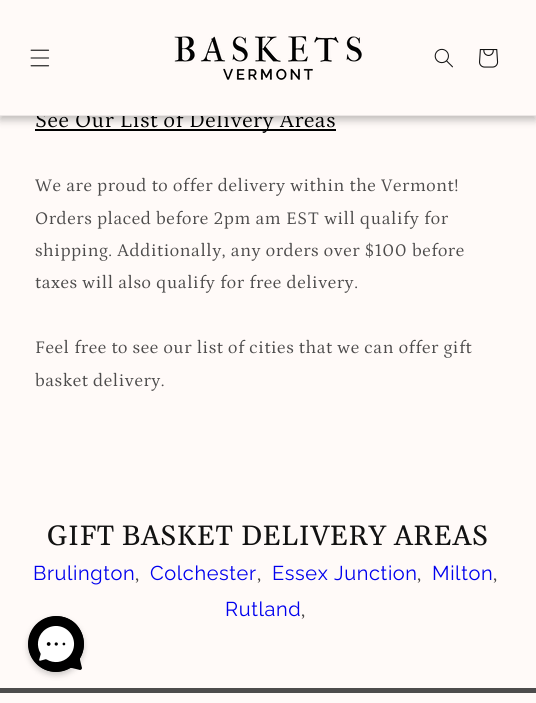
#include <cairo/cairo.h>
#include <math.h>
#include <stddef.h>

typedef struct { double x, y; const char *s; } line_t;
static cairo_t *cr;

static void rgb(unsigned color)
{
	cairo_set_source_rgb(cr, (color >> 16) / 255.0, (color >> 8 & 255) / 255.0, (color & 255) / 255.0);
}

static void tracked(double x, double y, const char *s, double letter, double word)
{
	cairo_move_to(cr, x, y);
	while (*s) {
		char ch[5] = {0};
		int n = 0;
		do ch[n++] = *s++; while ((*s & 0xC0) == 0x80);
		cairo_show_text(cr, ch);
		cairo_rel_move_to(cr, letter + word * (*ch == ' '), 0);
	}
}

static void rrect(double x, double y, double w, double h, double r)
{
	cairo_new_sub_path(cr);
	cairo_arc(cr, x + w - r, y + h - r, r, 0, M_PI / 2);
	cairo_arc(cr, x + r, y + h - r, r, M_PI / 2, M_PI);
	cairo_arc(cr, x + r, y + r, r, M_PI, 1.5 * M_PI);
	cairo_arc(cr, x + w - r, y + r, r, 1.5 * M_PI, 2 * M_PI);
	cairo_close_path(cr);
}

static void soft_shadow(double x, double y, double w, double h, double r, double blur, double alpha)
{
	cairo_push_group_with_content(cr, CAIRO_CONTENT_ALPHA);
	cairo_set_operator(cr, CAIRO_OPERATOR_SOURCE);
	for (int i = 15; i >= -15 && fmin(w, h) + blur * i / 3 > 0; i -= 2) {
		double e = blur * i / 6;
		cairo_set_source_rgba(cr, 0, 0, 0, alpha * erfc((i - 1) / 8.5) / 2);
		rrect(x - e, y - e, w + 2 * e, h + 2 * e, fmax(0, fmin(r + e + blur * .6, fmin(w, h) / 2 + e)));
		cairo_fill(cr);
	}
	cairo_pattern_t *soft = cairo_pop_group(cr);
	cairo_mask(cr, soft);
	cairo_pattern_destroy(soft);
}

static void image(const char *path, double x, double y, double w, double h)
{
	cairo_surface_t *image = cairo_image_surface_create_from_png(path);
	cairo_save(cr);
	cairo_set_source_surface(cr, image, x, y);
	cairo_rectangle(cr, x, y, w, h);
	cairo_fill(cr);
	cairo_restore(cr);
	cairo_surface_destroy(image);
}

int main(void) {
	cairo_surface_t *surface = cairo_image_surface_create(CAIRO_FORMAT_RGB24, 536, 703);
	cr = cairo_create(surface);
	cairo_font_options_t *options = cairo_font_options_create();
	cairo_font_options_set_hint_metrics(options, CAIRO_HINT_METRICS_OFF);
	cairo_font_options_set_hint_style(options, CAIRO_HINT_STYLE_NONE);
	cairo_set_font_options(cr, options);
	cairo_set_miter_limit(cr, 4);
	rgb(0xfffaf8);
	cairo_paint(cr);
	rgb(0x000000);
	cairo_rectangle(cr, 35, 129, 301, 2);
	cairo_fill(cr);
	rgb(0x000000);
	soft_shadow(0, 4, 536, 116, 0, 4, 0.25);
	soft_shadow(28, 619, 56, 56, 28, 3, 0.2);
	rgb(0x000000);
	cairo_arc(cr, 56, 644, 28, 0, 2 * M_PI);
	cairo_fill(cr);
	cairo_new_path(cr);
	cairo_move_to(cr, 76, 624);
	cairo_curve_to(cr, 65, 613, 47, 614, 36, 625);
	cairo_curve_to(cr, 26, 636, 26, 653, 36, 663);
	cairo_curve_to(cr, 45, 673, 59, 674, 70, 668);
	cairo_line_to(cr, 72, 668);
	cairo_line_to(cr, 80, 670);
	cairo_curve_to(cr, 81, 670, 82, 669, 82, 668);
	cairo_line_to(cr, 80, 660);
	cairo_line_to(cr, 80, 658);
	cairo_curve_to(cr, 86, 648, 85, 634, 76, 624);
	cairo_close_path(cr);
	cairo_fill(cr);
	image("img/5.png", 37, 626, 38, 37);
	image("img/6.png", 46, 642, 20, 4);
	rgb(0x4d4c4c);
	cairo_rectangle(cr, 0, 688, 536, 5);
	cairo_fill(cr);
	cairo_select_font_face(cr, "Petrona", CAIRO_FONT_SLANT_NORMAL, CAIRO_FONT_WEIGHT_NORMAL);
	cairo_set_font_size(cr, 22);
	rgb(0x000000);
	tracked(35, 127, "See Our List of Delivery Areas", 0.6, 0);
	rgb(0xfffaf8);
	cairo_rectangle(cr, 0, 0, 536, 115);
	cairo_fill(cr);
	image("img/4.png", 479, 49, 20, 19);
	image("img/3.png", 434, 48, 19, 20);
	image("img/1.png", 30, 49, 20, 18);
	image("img/2.png", 174, 36, 188, 44);
	rgb(0xece7e6);
	cairo_rectangle(cr, 0, 115, 536, 1);
	cairo_fill(cr);
	cairo_set_font_size(cr, 18);
	rgb(0x4d4c4c);
	{
		static const line_t items[] = {
			{35, 191, "We are proud to offer delivery within the Vermont!"},
			{35, 224, "Orders placed before 2pm am EST will qualify for"},
			{35, 256, "shipping. Additionally, any orders over $100 before"},
			{35, 288, "taxes will also qualify for free delivery."},
			{35, 353, "Feel free to see our list of cities that we can offer gift"},
			{35, 386, "basket delivery."},
		};
		for (size_t i = 0; i < sizeof items / sizeof *items; i++) {
			tracked(items[i].x, items[i].y, items[i].s, 0.6, 0);
		}
	}
	cairo_select_font_face(cr, "Gelasio", CAIRO_FONT_SLANT_NORMAL, CAIRO_FONT_WEIGHT_NORMAL);
	cairo_set_font_size(cr, 28);
	rgb(0x121212);
	tracked(47, 545, "GIFT BASKET DELIVERY AREAS", 0.6, 0);
	cairo_select_font_face(cr, "Raleway", CAIRO_FONT_SLANT_NORMAL, CAIRO_FONT_WEIGHT_NORMAL);
	cairo_set_font_size(cr, 20);
	rgb(0x0000ee);
	tracked(33, 580, "Brulington", 0.6, 0);
	cairo_select_font_face(cr, "Petrona", CAIRO_FONT_SLANT_NORMAL, CAIRO_FONT_WEIGHT_NORMAL);
	rgb(0x4d4c4c);
	tracked(135, 580, ",", 0.6, 0);
	cairo_select_font_face(cr, "Raleway", CAIRO_FONT_SLANT_NORMAL, CAIRO_FONT_WEIGHT_NORMAL);
	rgb(0x0000ee);
	tracked(150, 580, "Colchester", 0.6, 0);
	cairo_select_font_face(cr, "Petrona", CAIRO_FONT_SLANT_NORMAL, CAIRO_FONT_WEIGHT_NORMAL);
	rgb(0x4d4c4c);
	tracked(257, 580, ",", 0.6, 0);
	cairo_select_font_face(cr, "Raleway", CAIRO_FONT_SLANT_NORMAL, CAIRO_FONT_WEIGHT_NORMAL);
	rgb(0x0000ee);
	tracked(272, 580, "Essex Junction", 0.6, 0);
	cairo_select_font_face(cr, "Petrona", CAIRO_FONT_SLANT_NORMAL, CAIRO_FONT_WEIGHT_NORMAL);
	rgb(0x4d4c4c);
	tracked(417, 580, ",", 0.6, 0);
	cairo_select_font_face(cr, "Raleway", CAIRO_FONT_SLANT_NORMAL, CAIRO_FONT_WEIGHT_NORMAL);
	rgb(0x0000ee);
	tracked(432, 580, "Milton", 0.6, 0);
	cairo_select_font_face(cr, "Petrona", CAIRO_FONT_SLANT_NORMAL, CAIRO_FONT_WEIGHT_NORMAL);
	rgb(0x4d4c4c);
	tracked(493, 580, ",", 0.6, 0);
	cairo_select_font_face(cr, "Raleway", CAIRO_FONT_SLANT_NORMAL, CAIRO_FONT_WEIGHT_NORMAL);
	rgb(0x0000ee);
	tracked(225, 616, "Rutland", 0.6, 0);
	cairo_select_font_face(cr, "Petrona", CAIRO_FONT_SLANT_NORMAL, CAIRO_FONT_WEIGHT_NORMAL);
	rgb(0x4d4c4c);
	tracked(301, 616, ",", 0.6, 0);
	cairo_surface_write_to_png(surface, "page.png");
	cairo_font_options_destroy(options);
	cairo_destroy(cr);
	cairo_surface_destroy(surface);
	return 0;
}
